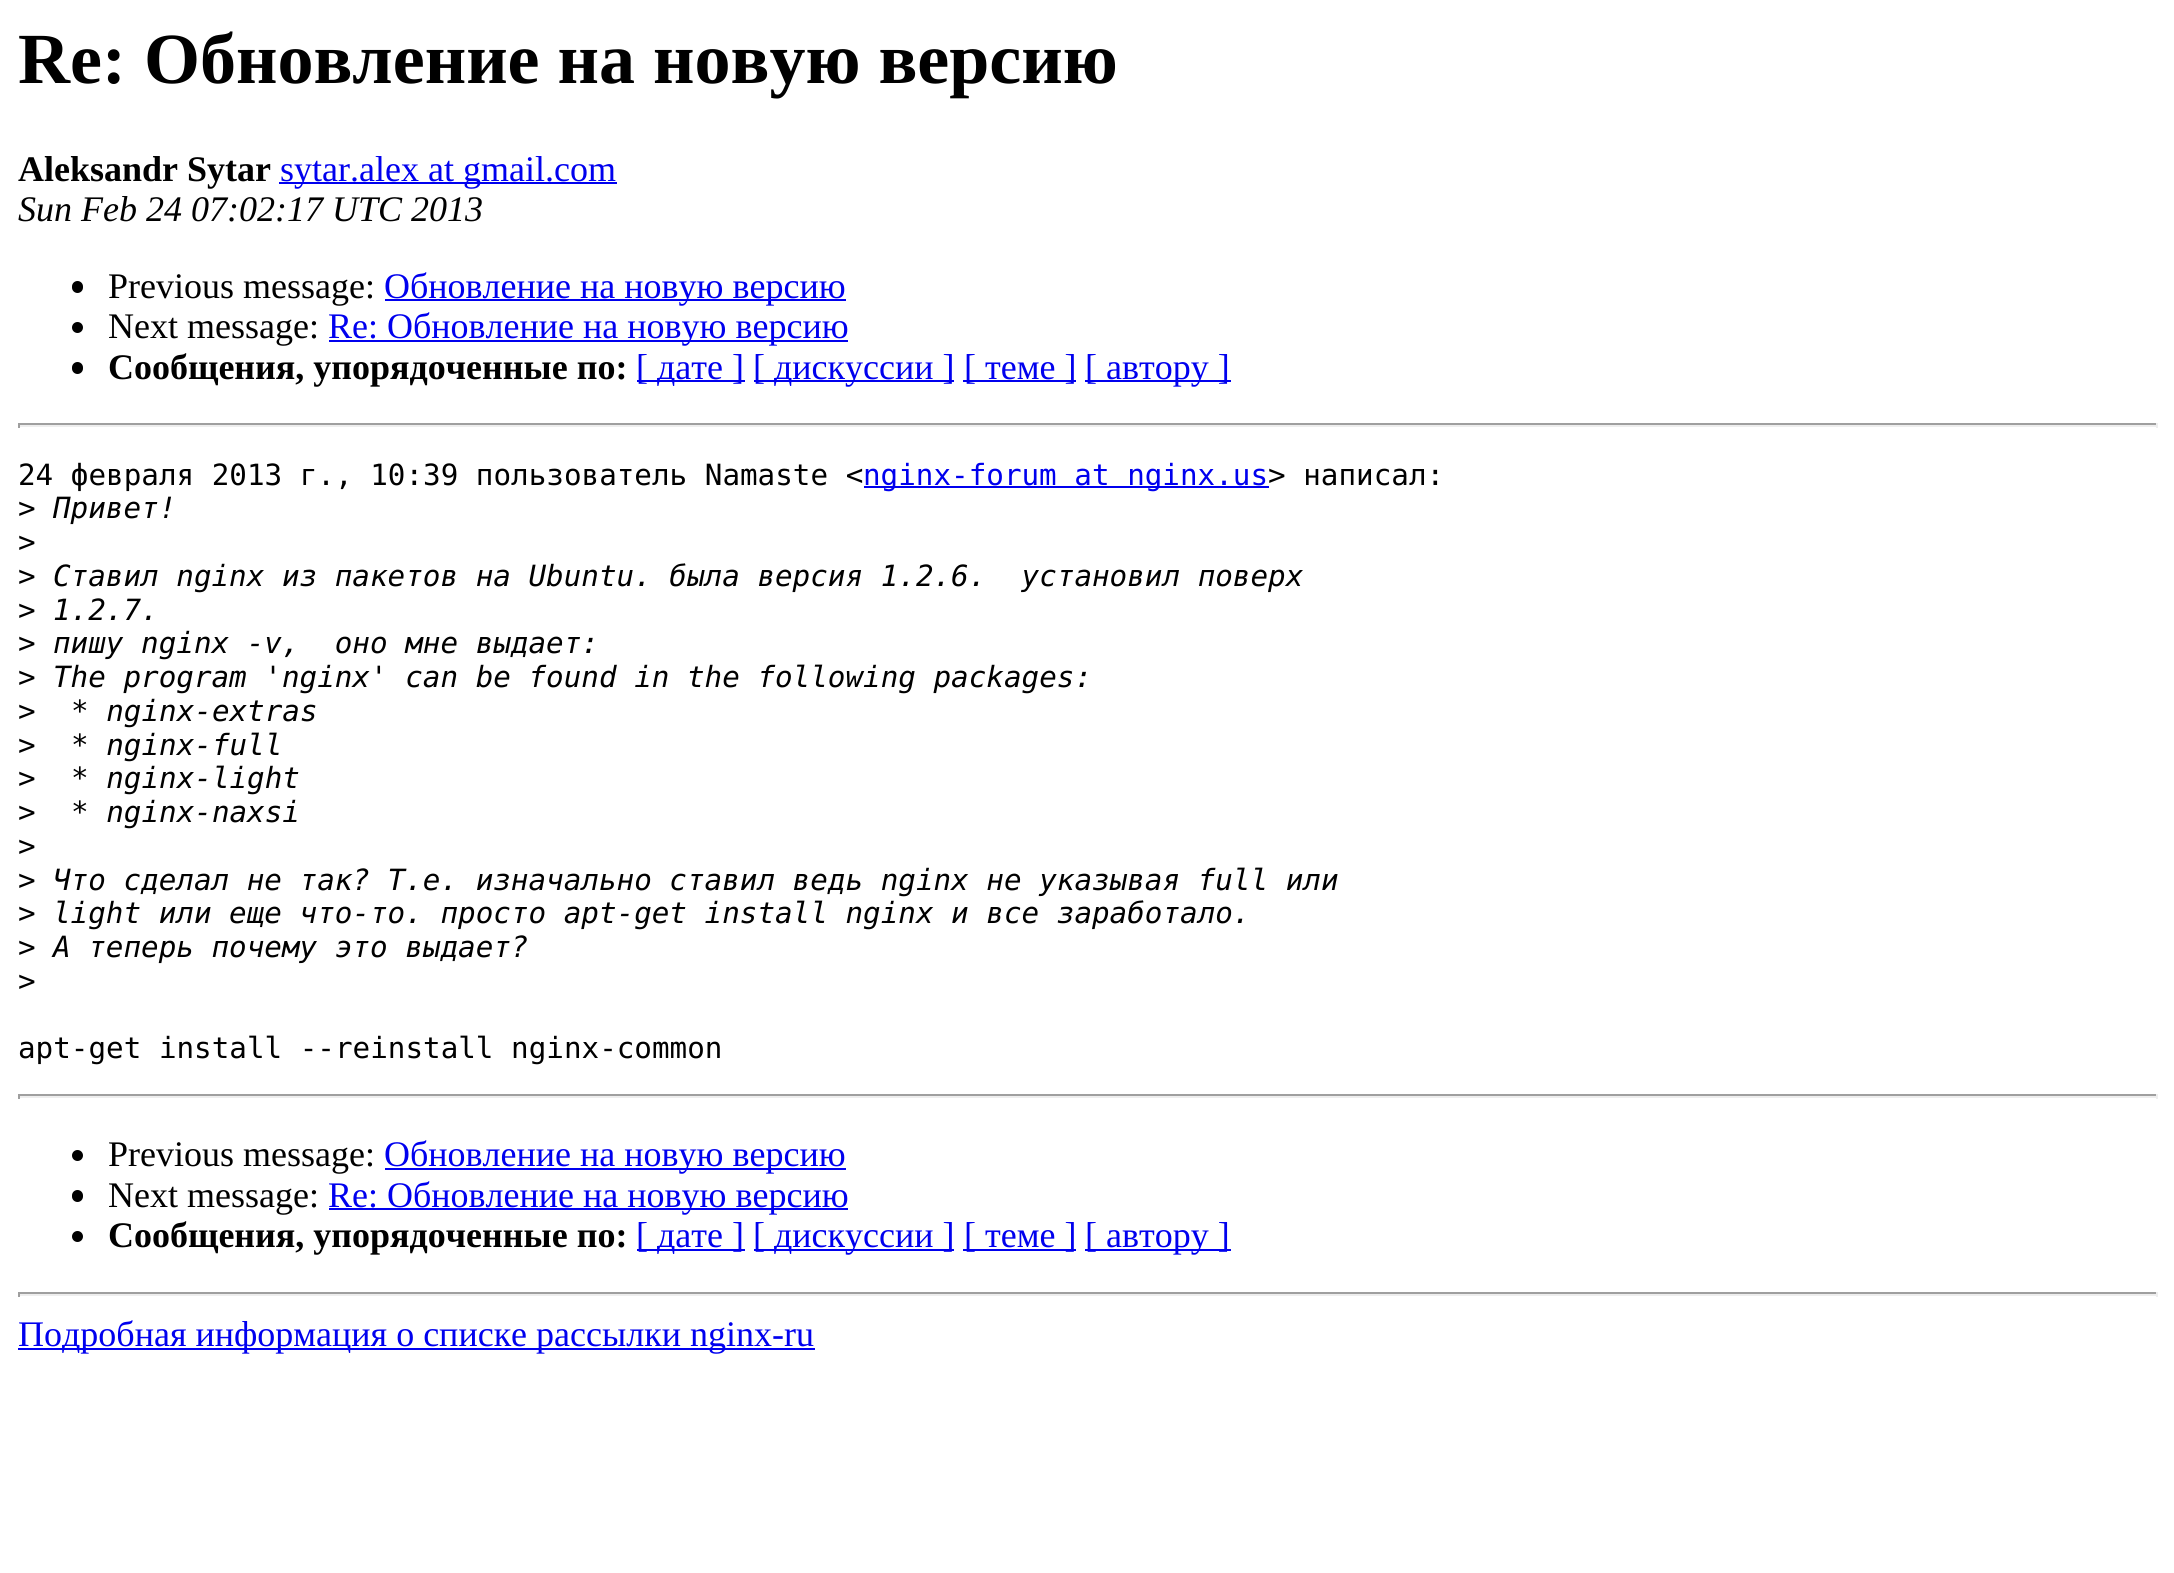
#include <cairo/cairo.h>
#include <math.h>
#include <stddef.h>

typedef struct { double x, y; const char *s; } line_t;
typedef struct { double x, y, w, h; unsigned color; } box_t;
static cairo_t *cr;

static void rgb(unsigned color)
{
	cairo_set_source_rgb(cr, (color >> 16) / 255.0, (color >> 8 & 255) / 255.0, (color & 255) / 255.0);
}

static void rrect(double x, double y, double w, double h, double r)
{
	cairo_new_sub_path(cr);
	cairo_arc(cr, x + w - r, y + h - r, r, 0, M_PI / 2);
	cairo_arc(cr, x + r, y + h - r, r, M_PI / 2, M_PI);
	cairo_arc(cr, x + r, y + r, r, M_PI, 1.5 * M_PI);
	cairo_arc(cr, x + w - r, y + r, r, 1.5 * M_PI, 2 * M_PI);
	cairo_close_path(cr);
}

int main(void) {
	cairo_surface_t *surface = cairo_image_surface_create(CAIRO_FORMAT_RGB24, 2174, 1573);
	cr = cairo_create(surface);
	cairo_font_options_t *options = cairo_font_options_create();
	cairo_font_options_set_hint_metrics(options, CAIRO_HINT_METRICS_OFF);
	cairo_font_options_set_hint_style(options, CAIRO_HINT_STYLE_NONE);
	cairo_set_font_options(cr, options);
	cairo_set_miter_limit(cr, 4);
	rgb(0xffffff);
	cairo_paint(cr);
	rgb(0x0000ee);
	cairo_rectangle(cr, 279, 182, 338, 2);
	cairo_fill(cr);
	rgb(0x000000);
	rrect(72, 281, 11, 12, 5.5);
	cairo_fill(cr);
	rgb(0x0000ee);
	cairo_rectangle(cr, 385, 299, 461, 2);
	cairo_fill(cr);
	rgb(0x000000);
	cairo_arc(cr, 77.5, 327.5, 5.5, 0, 2 * M_PI);
	cairo_fill(cr);
	rgb(0x0000ee);
	cairo_rectangle(cr, 329, 340, 519, 2);
	cairo_fill(cr);
	rgb(0x000000);
	rrect(72, 362, 11, 12, 5.5);
	cairo_fill(cr);
	{
		static const box_t items[] = {
			{637, 380, 108, 2, 0x0000ee},
			{754, 380, 200, 2, 0x0000ee},
			{963, 380, 113, 2, 0x0000ee},
			{1085, 380, 146, 2, 0x0000ee},
			{18, 423, 2140, 2, 0x9f9f9f},
			{2156, 423, 2, 5, 0xeeeeee},
			{18, 425, 2140, 2, 0xeeeeee},
			{18, 423, 2, 5, 0x9f9f9f},
			{864, 486, 405, 2, 0x0000ee},
			{18, 1094, 2140, 2, 0x9f9f9f},
			{2156, 1094, 2, 5, 0xeeeeee},
			{18, 1096, 2140, 2, 0xeeeeee},
			{18, 1094, 2, 5, 0x9f9f9f},
		};
		for (size_t i = 0; i < sizeof items / sizeof *items; i++) {
			rgb(items[i].color);
			cairo_rectangle(cr, items[i].x, items[i].y, items[i].w, items[i].h);
			cairo_fill(cr);
		}
	}
	rgb(0x000000);
	cairo_arc(cr, 77.5, 1155.5, 5.5, 0, 2 * M_PI);
	cairo_fill(cr);
	rgb(0x0000ee);
	cairo_rectangle(cr, 385, 1168, 461, 2);
	cairo_fill(cr);
	rgb(0x000000);
	rrect(72, 1190, 11, 12, 5.5);
	cairo_fill(cr);
	rgb(0x0000ee);
	cairo_rectangle(cr, 329, 1208, 519, 2);
	cairo_fill(cr);
	rgb(0x000000);
	cairo_arc(cr, 77.5, 1236.5, 5.5, 0, 2 * M_PI);
	cairo_fill(cr);
	{
		static const box_t items[] = {
			{637, 1249, 108, 2, 0x0000ee},
			{754, 1249, 200, 2, 0x0000ee},
			{963, 1249, 113, 2, 0x0000ee},
			{1085, 1249, 146, 2, 0x0000ee},
			{18, 1292, 2140, 2, 0x9f9f9f},
			{2156, 1292, 2, 5, 0xeeeeee},
			{18, 1294, 2140, 2, 0xeeeeee},
			{18, 1292, 2, 5, 0x9f9f9f},
			{18, 1348, 797, 2, 0x0000ee},
		};
		for (size_t i = 0; i < sizeof items / sizeof *items; i++) {
			rgb(items[i].color);
			cairo_rectangle(cr, items[i].x, items[i].y, items[i].w, items[i].h);
			cairo_fill(cr);
		}
	}
	cairo_select_font_face(cr, "Liberation Serif", CAIRO_FONT_SLANT_NORMAL, CAIRO_FONT_WEIGHT_BOLD);
	cairo_set_font_size(cr, 72);
	rgb(0x000000);
	cairo_move_to(cr, 18, 83);
	cairo_show_text(cr, "Re: Обновление на новую версию");
	cairo_set_font_size(cr, 36);
	cairo_move_to(cr, 18, 181);
	cairo_show_text(cr, "Aleksandr Sytar");
	cairo_select_font_face(cr, "Liberation Serif", CAIRO_FONT_SLANT_NORMAL, CAIRO_FONT_WEIGHT_NORMAL);
	rgb(0x0000ee);
	cairo_move_to(cr, 280, 181);
	cairo_show_text(cr, "sytar.alex at gmail.com");
	cairo_select_font_face(cr, "Liberation Serif", CAIRO_FONT_SLANT_ITALIC, CAIRO_FONT_WEIGHT_NORMAL);
	rgb(0x000000);
	cairo_move_to(cr, 18, 221);
	cairo_show_text(cr, "Sun Feb 24 07:02:17 UTC 2013");
	cairo_select_font_face(cr, "Liberation Serif", CAIRO_FONT_SLANT_NORMAL, CAIRO_FONT_WEIGHT_NORMAL);
	cairo_move_to(cr, 108, 298);
	cairo_show_text(cr, "Previous message:");
	rgb(0x0000ee);
	cairo_move_to(cr, 384, 298);
	cairo_show_text(cr, "Обновление на новую версию");
	rgb(0x000000);
	cairo_move_to(cr, 108, 338);
	cairo_show_text(cr, "Next message:");
	rgb(0x0000ee);
	cairo_move_to(cr, 328, 338);
	cairo_show_text(cr, "Re: Обновление на новую версию");
	cairo_select_font_face(cr, "Liberation Serif", CAIRO_FONT_SLANT_NORMAL, CAIRO_FONT_WEIGHT_BOLD);
	rgb(0x000000);
	cairo_move_to(cr, 108, 379);
	cairo_show_text(cr, "Сообщения, упорядоченные по:");
	cairo_select_font_face(cr, "Liberation Serif", CAIRO_FONT_SLANT_NORMAL, CAIRO_FONT_WEIGHT_NORMAL);
	rgb(0x0000ee);
	{
		static const line_t items[] = {
			{636, 379, "[ дате ]"},
			{753, 379, "[ дискуссии ]"},
			{964, 379, "[ теме ]"},
			{1085, 379, "[ автору ]"},
		};
		for (size_t i = 0; i < sizeof items / sizeof *items; i++) {
			cairo_move_to(cr, items[i].x, items[i].y);
			cairo_show_text(cr, items[i].s);
		}
	}
	cairo_select_font_face(cr, "DejaVu Sans Mono", CAIRO_FONT_SLANT_NORMAL, CAIRO_FONT_WEIGHT_NORMAL);
	cairo_set_font_size(cr, 29.25);
	rgb(0x000000);
	cairo_move_to(cr, 18, 485);
	cairo_show_text(cr, "24 февраля 2013 г., 10:39 пользователь Namaste <");
	rgb(0x0000ee);
	cairo_move_to(cr, 863, 485);
	cairo_show_text(cr, "nginx-forum at nginx.us");
	rgb(0x000000);
	cairo_move_to(cr, 1268, 485);
	cairo_show_text(cr, "> написал:");
	cairo_move_to(cr, 18, 518);
	cairo_show_text(cr, ">");
	cairo_select_font_face(cr, "DejaVu Sans Mono", CAIRO_FONT_SLANT_ITALIC, CAIRO_FONT_WEIGHT_NORMAL);
	cairo_move_to(cr, 53, 518);
	cairo_show_text(cr, "Привет!");
	cairo_select_font_face(cr, "DejaVu Sans Mono", CAIRO_FONT_SLANT_NORMAL, CAIRO_FONT_WEIGHT_NORMAL);
	cairo_move_to(cr, 18, 552);
	cairo_show_text(cr, ">");
	cairo_move_to(cr, 18, 586);
	cairo_show_text(cr, ">");
	cairo_select_font_face(cr, "DejaVu Sans Mono", CAIRO_FONT_SLANT_ITALIC, CAIRO_FONT_WEIGHT_NORMAL);
	cairo_move_to(cr, 53, 586);
	cairo_show_text(cr, "Ставил nginx из пакетов на Ubuntu. была версия 1.2.6.  установил поверх");
	cairo_select_font_face(cr, "DejaVu Sans Mono", CAIRO_FONT_SLANT_NORMAL, CAIRO_FONT_WEIGHT_NORMAL);
	cairo_move_to(cr, 18, 620);
	cairo_show_text(cr, ">");
	cairo_select_font_face(cr, "DejaVu Sans Mono", CAIRO_FONT_SLANT_ITALIC, CAIRO_FONT_WEIGHT_NORMAL);
	cairo_move_to(cr, 53, 620);
	cairo_show_text(cr, "1.2.7.");
	cairo_select_font_face(cr, "DejaVu Sans Mono", CAIRO_FONT_SLANT_NORMAL, CAIRO_FONT_WEIGHT_NORMAL);
	cairo_move_to(cr, 18, 653);
	cairo_show_text(cr, ">");
	cairo_select_font_face(cr, "DejaVu Sans Mono", CAIRO_FONT_SLANT_ITALIC, CAIRO_FONT_WEIGHT_NORMAL);
	cairo_move_to(cr, 53, 653);
	cairo_show_text(cr, "пишу nginx -v,  оно мне выдает:");
	cairo_select_font_face(cr, "DejaVu Sans Mono", CAIRO_FONT_SLANT_NORMAL, CAIRO_FONT_WEIGHT_NORMAL);
	cairo_move_to(cr, 18, 687);
	cairo_show_text(cr, ">");
	cairo_select_font_face(cr, "DejaVu Sans Mono", CAIRO_FONT_SLANT_ITALIC, CAIRO_FONT_WEIGHT_NORMAL);
	cairo_move_to(cr, 53, 687);
	cairo_show_text(cr, "The program 'nginx' can be found in the following packages:");
	cairo_select_font_face(cr, "DejaVu Sans Mono", CAIRO_FONT_SLANT_NORMAL, CAIRO_FONT_WEIGHT_NORMAL);
	cairo_move_to(cr, 18, 721);
	cairo_show_text(cr, ">");
	cairo_select_font_face(cr, "DejaVu Sans Mono", CAIRO_FONT_SLANT_ITALIC, CAIRO_FONT_WEIGHT_NORMAL);
	cairo_move_to(cr, 71, 721);
	cairo_show_text(cr, "* nginx-extras");
	cairo_select_font_face(cr, "DejaVu Sans Mono", CAIRO_FONT_SLANT_NORMAL, CAIRO_FONT_WEIGHT_NORMAL);
	cairo_move_to(cr, 18, 755);
	cairo_show_text(cr, ">");
	cairo_select_font_face(cr, "DejaVu Sans Mono", CAIRO_FONT_SLANT_ITALIC, CAIRO_FONT_WEIGHT_NORMAL);
	cairo_move_to(cr, 71, 755);
	cairo_show_text(cr, "* nginx-full");
	cairo_select_font_face(cr, "DejaVu Sans Mono", CAIRO_FONT_SLANT_NORMAL, CAIRO_FONT_WEIGHT_NORMAL);
	cairo_move_to(cr, 18, 788);
	cairo_show_text(cr, ">");
	cairo_select_font_face(cr, "DejaVu Sans Mono", CAIRO_FONT_SLANT_ITALIC, CAIRO_FONT_WEIGHT_NORMAL);
	cairo_move_to(cr, 71, 788);
	cairo_show_text(cr, "* nginx-light");
	cairo_select_font_face(cr, "DejaVu Sans Mono", CAIRO_FONT_SLANT_NORMAL, CAIRO_FONT_WEIGHT_NORMAL);
	cairo_move_to(cr, 18, 822);
	cairo_show_text(cr, ">");
	cairo_select_font_face(cr, "DejaVu Sans Mono", CAIRO_FONT_SLANT_ITALIC, CAIRO_FONT_WEIGHT_NORMAL);
	cairo_move_to(cr, 71, 822);
	cairo_show_text(cr, "* nginx-naxsi");
	cairo_select_font_face(cr, "DejaVu Sans Mono", CAIRO_FONT_SLANT_NORMAL, CAIRO_FONT_WEIGHT_NORMAL);
	cairo_move_to(cr, 18, 856);
	cairo_show_text(cr, ">");
	cairo_move_to(cr, 18, 890);
	cairo_show_text(cr, ">");
	cairo_select_font_face(cr, "DejaVu Sans Mono", CAIRO_FONT_SLANT_ITALIC, CAIRO_FONT_WEIGHT_NORMAL);
	cairo_move_to(cr, 53, 890);
	cairo_show_text(cr, "Что сделал не так? Т.е. изначально ставил ведь nginx не указывая full или");
	cairo_select_font_face(cr, "DejaVu Sans Mono", CAIRO_FONT_SLANT_NORMAL, CAIRO_FONT_WEIGHT_NORMAL);
	cairo_move_to(cr, 18, 923);
	cairo_show_text(cr, ">");
	cairo_select_font_face(cr, "DejaVu Sans Mono", CAIRO_FONT_SLANT_ITALIC, CAIRO_FONT_WEIGHT_NORMAL);
	cairo_move_to(cr, 53, 923);
	cairo_show_text(cr, "light или еще что-то. просто apt-get install nginx и все заработало.");
	cairo_select_font_face(cr, "DejaVu Sans Mono", CAIRO_FONT_SLANT_NORMAL, CAIRO_FONT_WEIGHT_NORMAL);
	cairo_move_to(cr, 18, 957);
	cairo_show_text(cr, ">");
	cairo_select_font_face(cr, "DejaVu Sans Mono", CAIRO_FONT_SLANT_ITALIC, CAIRO_FONT_WEIGHT_NORMAL);
	cairo_move_to(cr, 53, 957);
	cairo_show_text(cr, "А теперь почему это выдает?");
	cairo_select_font_face(cr, "DejaVu Sans Mono", CAIRO_FONT_SLANT_NORMAL, CAIRO_FONT_WEIGHT_NORMAL);
	cairo_move_to(cr, 18, 991);
	cairo_show_text(cr, ">");
	cairo_move_to(cr, 18, 1058);
	cairo_show_text(cr, "apt-get install --reinstall nginx-common");
	cairo_select_font_face(cr, "Liberation Serif", CAIRO_FONT_SLANT_NORMAL, CAIRO_FONT_WEIGHT_NORMAL);
	cairo_set_font_size(cr, 36);
	cairo_move_to(cr, 108, 1166);
	cairo_show_text(cr, "Previous message:");
	rgb(0x0000ee);
	cairo_move_to(cr, 384, 1166);
	cairo_show_text(cr, "Обновление на новую версию");
	rgb(0x000000);
	cairo_move_to(cr, 108, 1207);
	cairo_show_text(cr, "Next message:");
	rgb(0x0000ee);
	cairo_move_to(cr, 328, 1207);
	cairo_show_text(cr, "Re: Обновление на новую версию");
	cairo_select_font_face(cr, "Liberation Serif", CAIRO_FONT_SLANT_NORMAL, CAIRO_FONT_WEIGHT_BOLD);
	rgb(0x000000);
	cairo_move_to(cr, 108, 1247);
	cairo_show_text(cr, "Сообщения, упорядоченные по:");
	cairo_select_font_face(cr, "Liberation Serif", CAIRO_FONT_SLANT_NORMAL, CAIRO_FONT_WEIGHT_NORMAL);
	rgb(0x0000ee);
	{
		static const line_t items[] = {
			{636, 1247, "[ дате ]"},
			{753, 1247, "[ дискуссии ]"},
			{964, 1247, "[ теме ]"},
			{1085, 1247, "[ автору ]"},
			{18, 1346, "Подробная информация о списке рассылки nginx-ru"},
		};
		for (size_t i = 0; i < sizeof items / sizeof *items; i++) {
			cairo_move_to(cr, items[i].x, items[i].y);
			cairo_show_text(cr, items[i].s);
		}
	}
	cairo_surface_write_to_png(surface, "page.png");
	cairo_font_options_destroy(options);
	cairo_destroy(cr);
	cairo_surface_destroy(surface);
	return 0;
}
